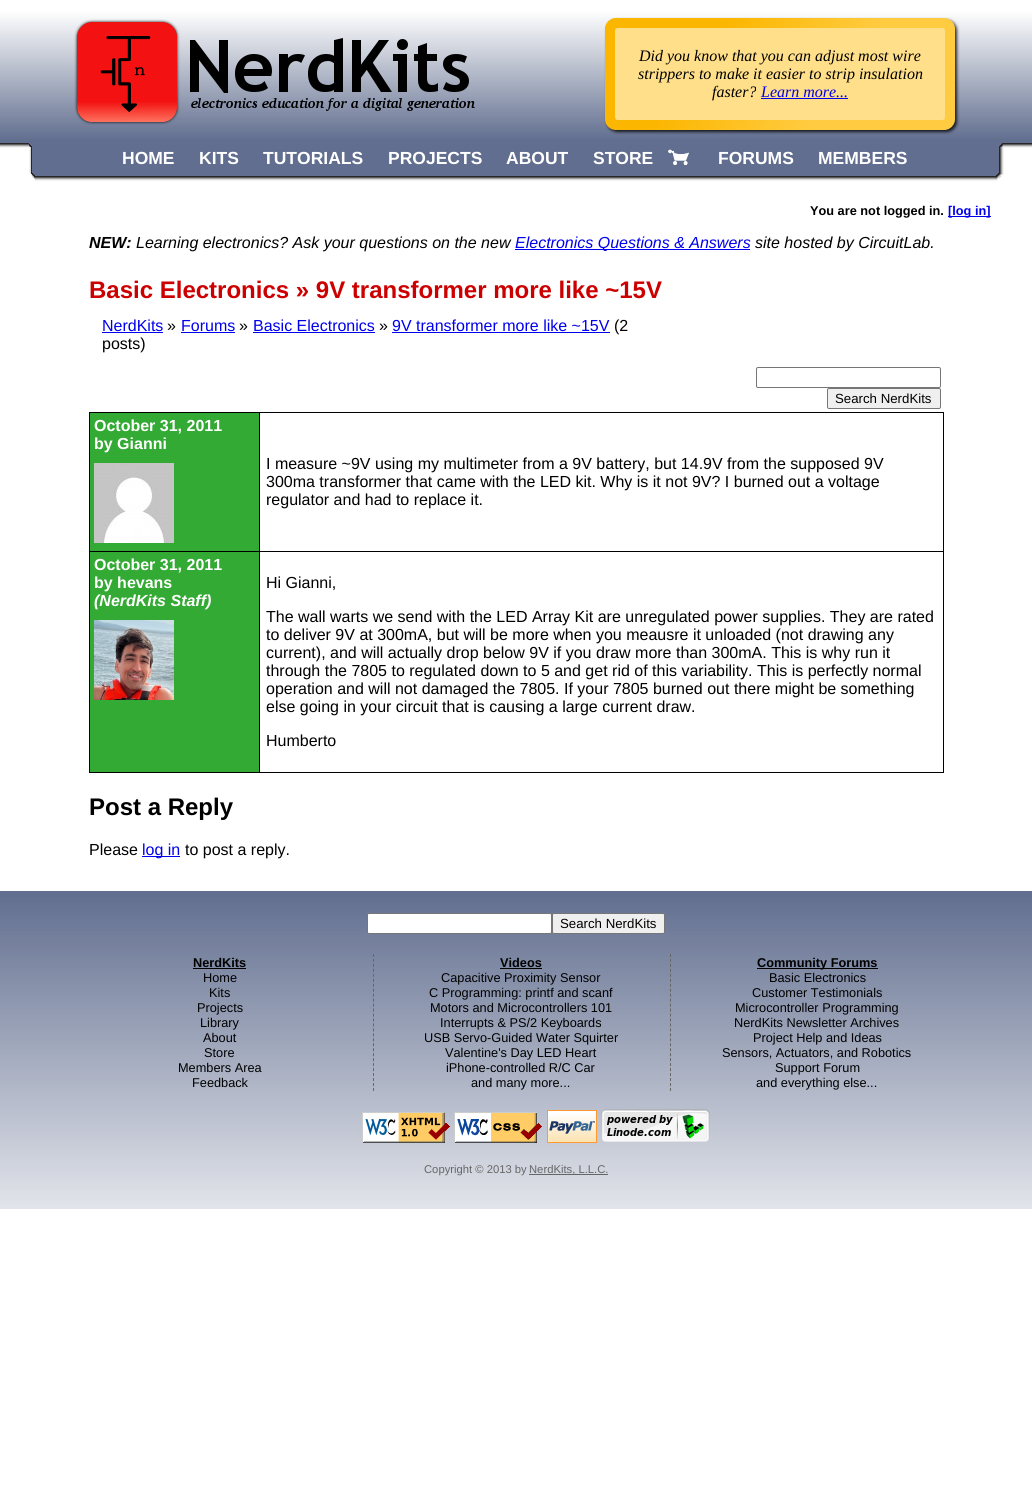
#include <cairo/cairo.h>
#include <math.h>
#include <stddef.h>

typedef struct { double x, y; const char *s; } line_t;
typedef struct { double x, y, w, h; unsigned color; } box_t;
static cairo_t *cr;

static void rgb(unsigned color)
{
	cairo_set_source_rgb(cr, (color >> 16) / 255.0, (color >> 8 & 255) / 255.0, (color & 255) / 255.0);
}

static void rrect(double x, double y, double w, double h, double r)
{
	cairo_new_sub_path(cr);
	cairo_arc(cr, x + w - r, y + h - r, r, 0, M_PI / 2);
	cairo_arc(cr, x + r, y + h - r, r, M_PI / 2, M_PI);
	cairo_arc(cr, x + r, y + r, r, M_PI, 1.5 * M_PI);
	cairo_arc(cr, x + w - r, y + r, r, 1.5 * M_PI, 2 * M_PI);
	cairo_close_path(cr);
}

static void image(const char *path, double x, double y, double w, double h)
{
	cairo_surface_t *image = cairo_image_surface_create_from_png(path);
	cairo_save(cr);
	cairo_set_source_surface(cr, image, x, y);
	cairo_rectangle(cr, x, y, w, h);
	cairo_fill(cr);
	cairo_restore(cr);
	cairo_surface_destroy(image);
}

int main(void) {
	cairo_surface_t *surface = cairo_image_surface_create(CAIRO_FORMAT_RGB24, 1032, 1509);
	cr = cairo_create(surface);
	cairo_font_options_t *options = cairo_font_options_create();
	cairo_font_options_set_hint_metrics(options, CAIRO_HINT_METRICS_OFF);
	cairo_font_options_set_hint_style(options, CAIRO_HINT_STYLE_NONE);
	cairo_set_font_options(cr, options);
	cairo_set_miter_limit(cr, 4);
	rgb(0xffffff);
	cairo_paint(cr);
	image("img/1.png", 0, 0, 1032, 150);
	image("img/2.png", 74, 19, 401, 106);
	image("img/3.png", 604, 17, 356, 118);
	rgb(0x0000ee);
	cairo_rectangle(cr, 761, 98, 87, 1);
	cairo_fill(cr);
	rgb(0x616e8f);
	cairo_rectangle(cr, 29, 143, 8, 1);
	cairo_fill(cr);
	image("img/4.png", 29, 144, 8, 39);
	cairo_rectangle(cr, 37, 143, 957, 33);
	cairo_fill(cr);
	image("img/5.png", 37, 176, 73, 7);
	image("img/6.png", 994, 143, 10, 40);
	image("img/7.png", 110, 176, 77, 7);
	image("img/8.png", 187, 176, 64, 7);
	image("img/9.png", 251, 176, 125, 7);
	image("img/10.png", 376, 176, 118, 7);
	image("img/11.png", 494, 176, 87, 7);
	image("img/9.png", 581, 176, 125, 7);
	image("img/12.png", 668, 149, 21, 17);
	image("img/13.png", 706, 176, 100, 7);
	image("img/14.png", 806, 176, 114, 7);
	image("img/15.png", 920, 176, 74, 7);
	{
		static const box_t items[] = {
			{948, 216, 43, 1, 0x0000ee},
			{515, 249, 235, 1, 0x0000ee},
			{102, 332, 61, 1, 0x0000ee},
			{181, 332, 54, 1, 0x0000ee},
			{253, 332, 122, 1, 0x0000ee},
			{392, 332, 218, 1, 0x0000ee},
		};
		for (size_t i = 0; i < sizeof items / sizeof *items; i++) {
			rgb(items[i].color);
			cairo_rectangle(cr, items[i].x, items[i].y, items[i].w, items[i].h);
			cairo_fill(cr);
		}
	}
	rrect(756.5, 367.5, 184, 20, 1.5);
	rgb(0x767676);
	cairo_set_line_width(cr, 1);
	cairo_stroke(cr);
	rgb(0xefefef);
	rrect(827.5, 388.5, 113, 20, 1.5);
	cairo_fill_preserve(cr);
	rgb(0x767676);
	cairo_stroke(cr);
	{
		static const box_t items[] = {
			{90, 413, 169, 138, 0x33aa33},
			{259, 412, 685, 1, 0x000000},
			{259, 551, 685, 1, 0x000000},
			{943, 551, 1, 222, 0x000000},
			{259, 772, 685, 1, 0x000000},
			{259, 551, 1, 222, 0x000000},
			{89, 551, 171, 1, 0x000000},
			{259, 412, 1, 140, 0x000000},
			{89, 412, 171, 1, 0x000000},
			{89, 772, 171, 1, 0x000000},
			{89, 551, 1, 222, 0x000000},
			{89, 412, 1, 140, 0x000000},
		};
		for (size_t i = 0; i < sizeof items / sizeof *items; i++) {
			rgb(items[i].color);
			cairo_rectangle(cr, items[i].x, items[i].y, items[i].w, items[i].h);
			cairo_fill(cr);
		}
	}
	image("img/16.png", 94, 463, 80, 80);
	cairo_rectangle(cr, 943, 412, 1, 140);
	cairo_fill(cr);
	rgb(0x33aa33);
	cairo_rectangle(cr, 90, 552, 169, 220);
	cairo_fill(cr);
	image("img/17.png", 94, 620, 80, 80);
	rgb(0x0000ee);
	cairo_rectangle(cr, 142, 856, 38, 1);
	cairo_fill(cr);
	image("img/18.png", 0, 891, 1032, 318);
	rgb(0xffffff);
	rrect(367.5, 913.5, 184, 20, 1.5);
	cairo_fill_preserve(cr);
	rgb(0x767676);
	cairo_stroke(cr);
	rgb(0xefefef);
	rrect(552.5, 913.5, 112, 20, 1.5);
	cairo_fill_preserve(cr);
	rgb(0x767676);
	cairo_stroke(cr);
	rgb(0x000000);
	cairo_rectangle(cr, 193, 968, 53, 1);
	cairo_fill(cr);
	cairo_new_path(cr);
	cairo_move_to(cr, 373.5, 954);
	cairo_line_to(cr, 373.5, 1091);
	rgb(0x666666);
	cairo_set_dash(cr, (double[]){3, 1.96}, 2, 0);
	cairo_stroke(cr);
	rgb(0x000000);
	cairo_rectangle(cr, 500, 968, 42, 1);
	cairo_fill(cr);
	cairo_new_path(cr);
	cairo_move_to(cr, 670.5, 954);
	cairo_line_to(cr, 670.5, 1091);
	rgb(0x666666);
	cairo_stroke(cr);
	rgb(0x000000);
	cairo_rectangle(cr, 757, 968, 121, 1);
	cairo_fill(cr);
	image("img/19.png", 362, 1112, 88, 31);
	image("img/20.png", 454, 1112, 88, 31);
	image("img/21.png", 547, 1110, 50, 33);
	image("img/22.png", 601, 1109, 109, 33);
	rgb(0x666666);
	cairo_rectangle(cr, 529, 1174, 79, 1);
	cairo_fill(cr);
	cairo_select_font_face(cr, "Liberation Serif", CAIRO_FONT_SLANT_ITALIC, CAIRO_FONT_WEIGHT_NORMAL);
	cairo_set_font_size(cr, 16);
	rgb(0x000000);
	{
		static const line_t items[] = {
			{639, 61, "Did you know that you can adjust most wire"},
			{638, 79, "strippers to make it easier to strip insulation"},
			{712, 97, "faster?"},
		};
		for (size_t i = 0; i < sizeof items / sizeof *items; i++) {
			cairo_move_to(cr, items[i].x, items[i].y);
			cairo_show_text(cr, items[i].s);
		}
	}
	rgb(0x0000ee);
	cairo_move_to(cr, 761, 97);
	cairo_show_text(cr, "Learn more...");
	cairo_select_font_face(cr, "Liberation Sans", CAIRO_FONT_SLANT_NORMAL, CAIRO_FONT_WEIGHT_BOLD);
	cairo_set_font_size(cr, 17.5);
	rgb(0xffffff);
	{
		static const line_t items[] = {
			{122, 164, "HOME"},
			{199, 164, "KITS"},
			{263, 164, "TUTORIALS"},
			{388, 164, "PROJECTS"},
			{506, 164, "ABOUT"},
			{593, 164, "STORE"},
			{718, 164, "FORUMS"},
			{818, 164, "MEMBERS"},
		};
		for (size_t i = 0; i < sizeof items / sizeof *items; i++) {
			cairo_move_to(cr, items[i].x, items[i].y);
			cairo_show_text(cr, items[i].s);
		}
	}
	cairo_set_font_size(cr, 12.75);
	rgb(0x000000);
	cairo_move_to(cr, 810, 215);
	cairo_show_text(cr, "You are not logged in.");
	rgb(0x0000ee);
	cairo_move_to(cr, 948, 215);
	cairo_show_text(cr, "[log in]");
	cairo_select_font_face(cr, "Liberation Sans", CAIRO_FONT_SLANT_ITALIC, CAIRO_FONT_WEIGHT_BOLD);
	cairo_set_font_size(cr, 16);
	rgb(0x000000);
	cairo_move_to(cr, 89, 248);
	cairo_show_text(cr, "NEW:");
	cairo_select_font_face(cr, "Liberation Sans", CAIRO_FONT_SLANT_ITALIC, CAIRO_FONT_WEIGHT_NORMAL);
	cairo_move_to(cr, 136, 248);
	cairo_show_text(cr, "Learning electronics? Ask your questions on the new");
	rgb(0x0000ee);
	cairo_move_to(cr, 515, 248);
	cairo_show_text(cr, "Electronics Questions & Answers");
	rgb(0x000000);
	cairo_move_to(cr, 755, 248);
	cairo_show_text(cr, "site hosted by CircuitLab.");
	cairo_select_font_face(cr, "Liberation Sans", CAIRO_FONT_SLANT_NORMAL, CAIRO_FONT_WEIGHT_BOLD);
	cairo_set_font_size(cr, 24);
	rgb(0xcc0000);
	cairo_move_to(cr, 89, 298);
	cairo_show_text(cr, "Basic Electronics » 9V transformer more like ~15V");
	cairo_select_font_face(cr, "Liberation Sans", CAIRO_FONT_SLANT_NORMAL, CAIRO_FONT_WEIGHT_NORMAL);
	cairo_set_font_size(cr, 16);
	rgb(0x0000ee);
	cairo_move_to(cr, 102, 331);
	cairo_show_text(cr, "NerdKits");
	rgb(0x000000);
	cairo_move_to(cr, 167, 331);
	cairo_show_text(cr, "»");
	rgb(0x0000ee);
	cairo_move_to(cr, 181, 331);
	cairo_show_text(cr, "Forums");
	rgb(0x000000);
	cairo_move_to(cr, 239, 331);
	cairo_show_text(cr, "»");
	rgb(0x0000ee);
	cairo_move_to(cr, 253, 331);
	cairo_show_text(cr, "Basic Electronics");
	rgb(0x000000);
	cairo_move_to(cr, 379, 331);
	cairo_show_text(cr, "»");
	rgb(0x0000ee);
	cairo_move_to(cr, 392, 331);
	cairo_show_text(cr, "9V transformer more like ~15V");
	rgb(0x000000);
	cairo_move_to(cr, 614, 331);
	cairo_show_text(cr, "(2");
	cairo_move_to(cr, 102, 349);
	cairo_show_text(cr, "posts)");
	cairo_set_font_size(cr, 13.25);
	cairo_move_to(cr, 835, 403);
	cairo_show_text(cr, "Search NerdKits");
	cairo_select_font_face(cr, "Liberation Sans", CAIRO_FONT_SLANT_NORMAL, CAIRO_FONT_WEIGHT_BOLD);
	cairo_set_font_size(cr, 16);
	rgb(0xffffff);
	cairo_move_to(cr, 94, 431);
	cairo_show_text(cr, "October 31, 2011");
	cairo_move_to(cr, 94, 449);
	cairo_show_text(cr, "by Gianni");
	cairo_select_font_face(cr, "Liberation Sans", CAIRO_FONT_SLANT_NORMAL, CAIRO_FONT_WEIGHT_NORMAL);
	rgb(0x000000);
	{
		static const line_t items[] = {
			{266, 469, "I measure ~9V using my multimeter from a 9V battery, but 14.9V from the supposed 9V"},
			{266, 487, "300ma transformer that came with the LED kit. Why is it not 9V? I burned out a voltage"},
			{266, 505, "regulator and had to replace it."},
		};
		for (size_t i = 0; i < sizeof items / sizeof *items; i++) {
			cairo_move_to(cr, items[i].x, items[i].y);
			cairo_show_text(cr, items[i].s);
		}
	}
	cairo_select_font_face(cr, "Liberation Sans", CAIRO_FONT_SLANT_NORMAL, CAIRO_FONT_WEIGHT_BOLD);
	rgb(0xffffff);
	cairo_move_to(cr, 94, 570);
	cairo_show_text(cr, "October 31, 2011");
	cairo_move_to(cr, 94, 588);
	cairo_show_text(cr, "by hevans");
	cairo_select_font_face(cr, "Liberation Sans", CAIRO_FONT_SLANT_ITALIC, CAIRO_FONT_WEIGHT_BOLD);
	cairo_move_to(cr, 94, 606);
	cairo_show_text(cr, "(NerdKits Staff)");
	cairo_select_font_face(cr, "Liberation Sans", CAIRO_FONT_SLANT_NORMAL, CAIRO_FONT_WEIGHT_NORMAL);
	rgb(0x000000);
	{
		static const line_t items[] = {
			{266, 588, "Hi Gianni,"},
			{266, 622, "The wall warts we send with the LED Array Kit are unregulated power supplies. They are rated"},
			{266, 640, "to deliver 9V at 300mA, but will be more when you meausre it unloaded (not drawing any"},
			{266, 658, "current), and will actually drop below 9V if you draw more than 300mA. This is why run it"},
			{266, 676, "through the 7805 to regulated down to 5 and get rid of this variability. This is perfectly normal"},
			{266, 694, "operation and will not damaged the 7805. If your 7805 burned out there might be something"},
			{266, 712, "else going in your circuit that is causing a large current draw."},
			{266, 746, "Humberto"},
		};
		for (size_t i = 0; i < sizeof items / sizeof *items; i++) {
			cairo_move_to(cr, items[i].x, items[i].y);
			cairo_show_text(cr, items[i].s);
		}
	}
	cairo_select_font_face(cr, "Liberation Sans", CAIRO_FONT_SLANT_NORMAL, CAIRO_FONT_WEIGHT_BOLD);
	cairo_set_font_size(cr, 24);
	cairo_move_to(cr, 89, 815);
	cairo_show_text(cr, "Post a Reply");
	cairo_select_font_face(cr, "Liberation Sans", CAIRO_FONT_SLANT_NORMAL, CAIRO_FONT_WEIGHT_NORMAL);
	cairo_set_font_size(cr, 16);
	cairo_move_to(cr, 89, 855);
	cairo_show_text(cr, "Please");
	rgb(0x0000ee);
	cairo_move_to(cr, 142, 855);
	cairo_show_text(cr, "log in");
	rgb(0x000000);
	cairo_move_to(cr, 185, 855);
	cairo_show_text(cr, "to post a reply.");
	cairo_set_font_size(cr, 13.25);
	cairo_move_to(cr, 560, 928);
	cairo_show_text(cr, "Search NerdKits");
	cairo_select_font_face(cr, "Liberation Sans", CAIRO_FONT_SLANT_NORMAL, CAIRO_FONT_WEIGHT_BOLD);
	cairo_set_font_size(cr, 12.75);
	cairo_move_to(cr, 193, 967);
	cairo_show_text(cr, "NerdKits");
	cairo_select_font_face(cr, "Liberation Sans", CAIRO_FONT_SLANT_NORMAL, CAIRO_FONT_WEIGHT_NORMAL);
	{
		static const line_t items[] = {
			{203, 982, "Home"},
			{209, 997, "Kits"},
			{197, 1012, "Projects"},
			{200, 1027, "Library"},
			{203, 1042, "About"},
			{204, 1057, "Store"},
			{178, 1072, "Members Area"},
			{192, 1087, "Feedback"},
		};
		for (size_t i = 0; i < sizeof items / sizeof *items; i++) {
			cairo_move_to(cr, items[i].x, items[i].y);
			cairo_show_text(cr, items[i].s);
		}
	}
	cairo_select_font_face(cr, "Liberation Sans", CAIRO_FONT_SLANT_NORMAL, CAIRO_FONT_WEIGHT_BOLD);
	cairo_move_to(cr, 500, 967);
	cairo_show_text(cr, "Videos");
	cairo_select_font_face(cr, "Liberation Sans", CAIRO_FONT_SLANT_NORMAL, CAIRO_FONT_WEIGHT_NORMAL);
	{
		static const line_t items[] = {
			{441, 982, "Capacitive Proximity Sensor"},
			{429, 997, "C Programming: printf and scanf"},
			{430, 1012, "Motors and Microcontrollers 101"},
			{440, 1027, "Interrupts & PS/2 Keyboards"},
			{424, 1042, "USB Servo-Guided Water Squirter"},
			{445, 1057, "Valentine's Day LED Heart"},
			{446, 1072, "iPhone-controlled R/C Car"},
			{471, 1087, "and many more..."},
		};
		for (size_t i = 0; i < sizeof items / sizeof *items; i++) {
			cairo_move_to(cr, items[i].x, items[i].y);
			cairo_show_text(cr, items[i].s);
		}
	}
	cairo_select_font_face(cr, "Liberation Sans", CAIRO_FONT_SLANT_NORMAL, CAIRO_FONT_WEIGHT_BOLD);
	cairo_move_to(cr, 757, 967);
	cairo_show_text(cr, "Community Forums");
	cairo_select_font_face(cr, "Liberation Sans", CAIRO_FONT_SLANT_NORMAL, CAIRO_FONT_WEIGHT_NORMAL);
	{
		static const line_t items[] = {
			{769, 982, "Basic Electronics"},
			{752, 997, "Customer Testimonials"},
			{735, 1012, "Microcontroller Programming"},
			{734, 1027, "NerdKits Newsletter Archives"},
			{753, 1042, "Project Help and Ideas"},
			{722, 1057, "Sensors, Actuators, and Robotics"},
			{775, 1072, "Support Forum"},
			{756, 1087, "and everything else..."},
		};
		for (size_t i = 0; i < sizeof items / sizeof *items; i++) {
			cairo_move_to(cr, items[i].x, items[i].y);
			cairo_show_text(cr, items[i].s);
		}
	}
	cairo_set_font_size(cr, 11.25);
	rgb(0x666666);
	cairo_move_to(cr, 424, 1173);
	cairo_show_text(cr, "Copyright © 2013 by");
	cairo_move_to(cr, 529, 1173);
	cairo_show_text(cr, "NerdKits, L.L.C.");
	cairo_surface_write_to_png(surface, "page.png");
	cairo_font_options_destroy(options);
	cairo_destroy(cr);
	cairo_surface_destroy(surface);
	return 0;
}
